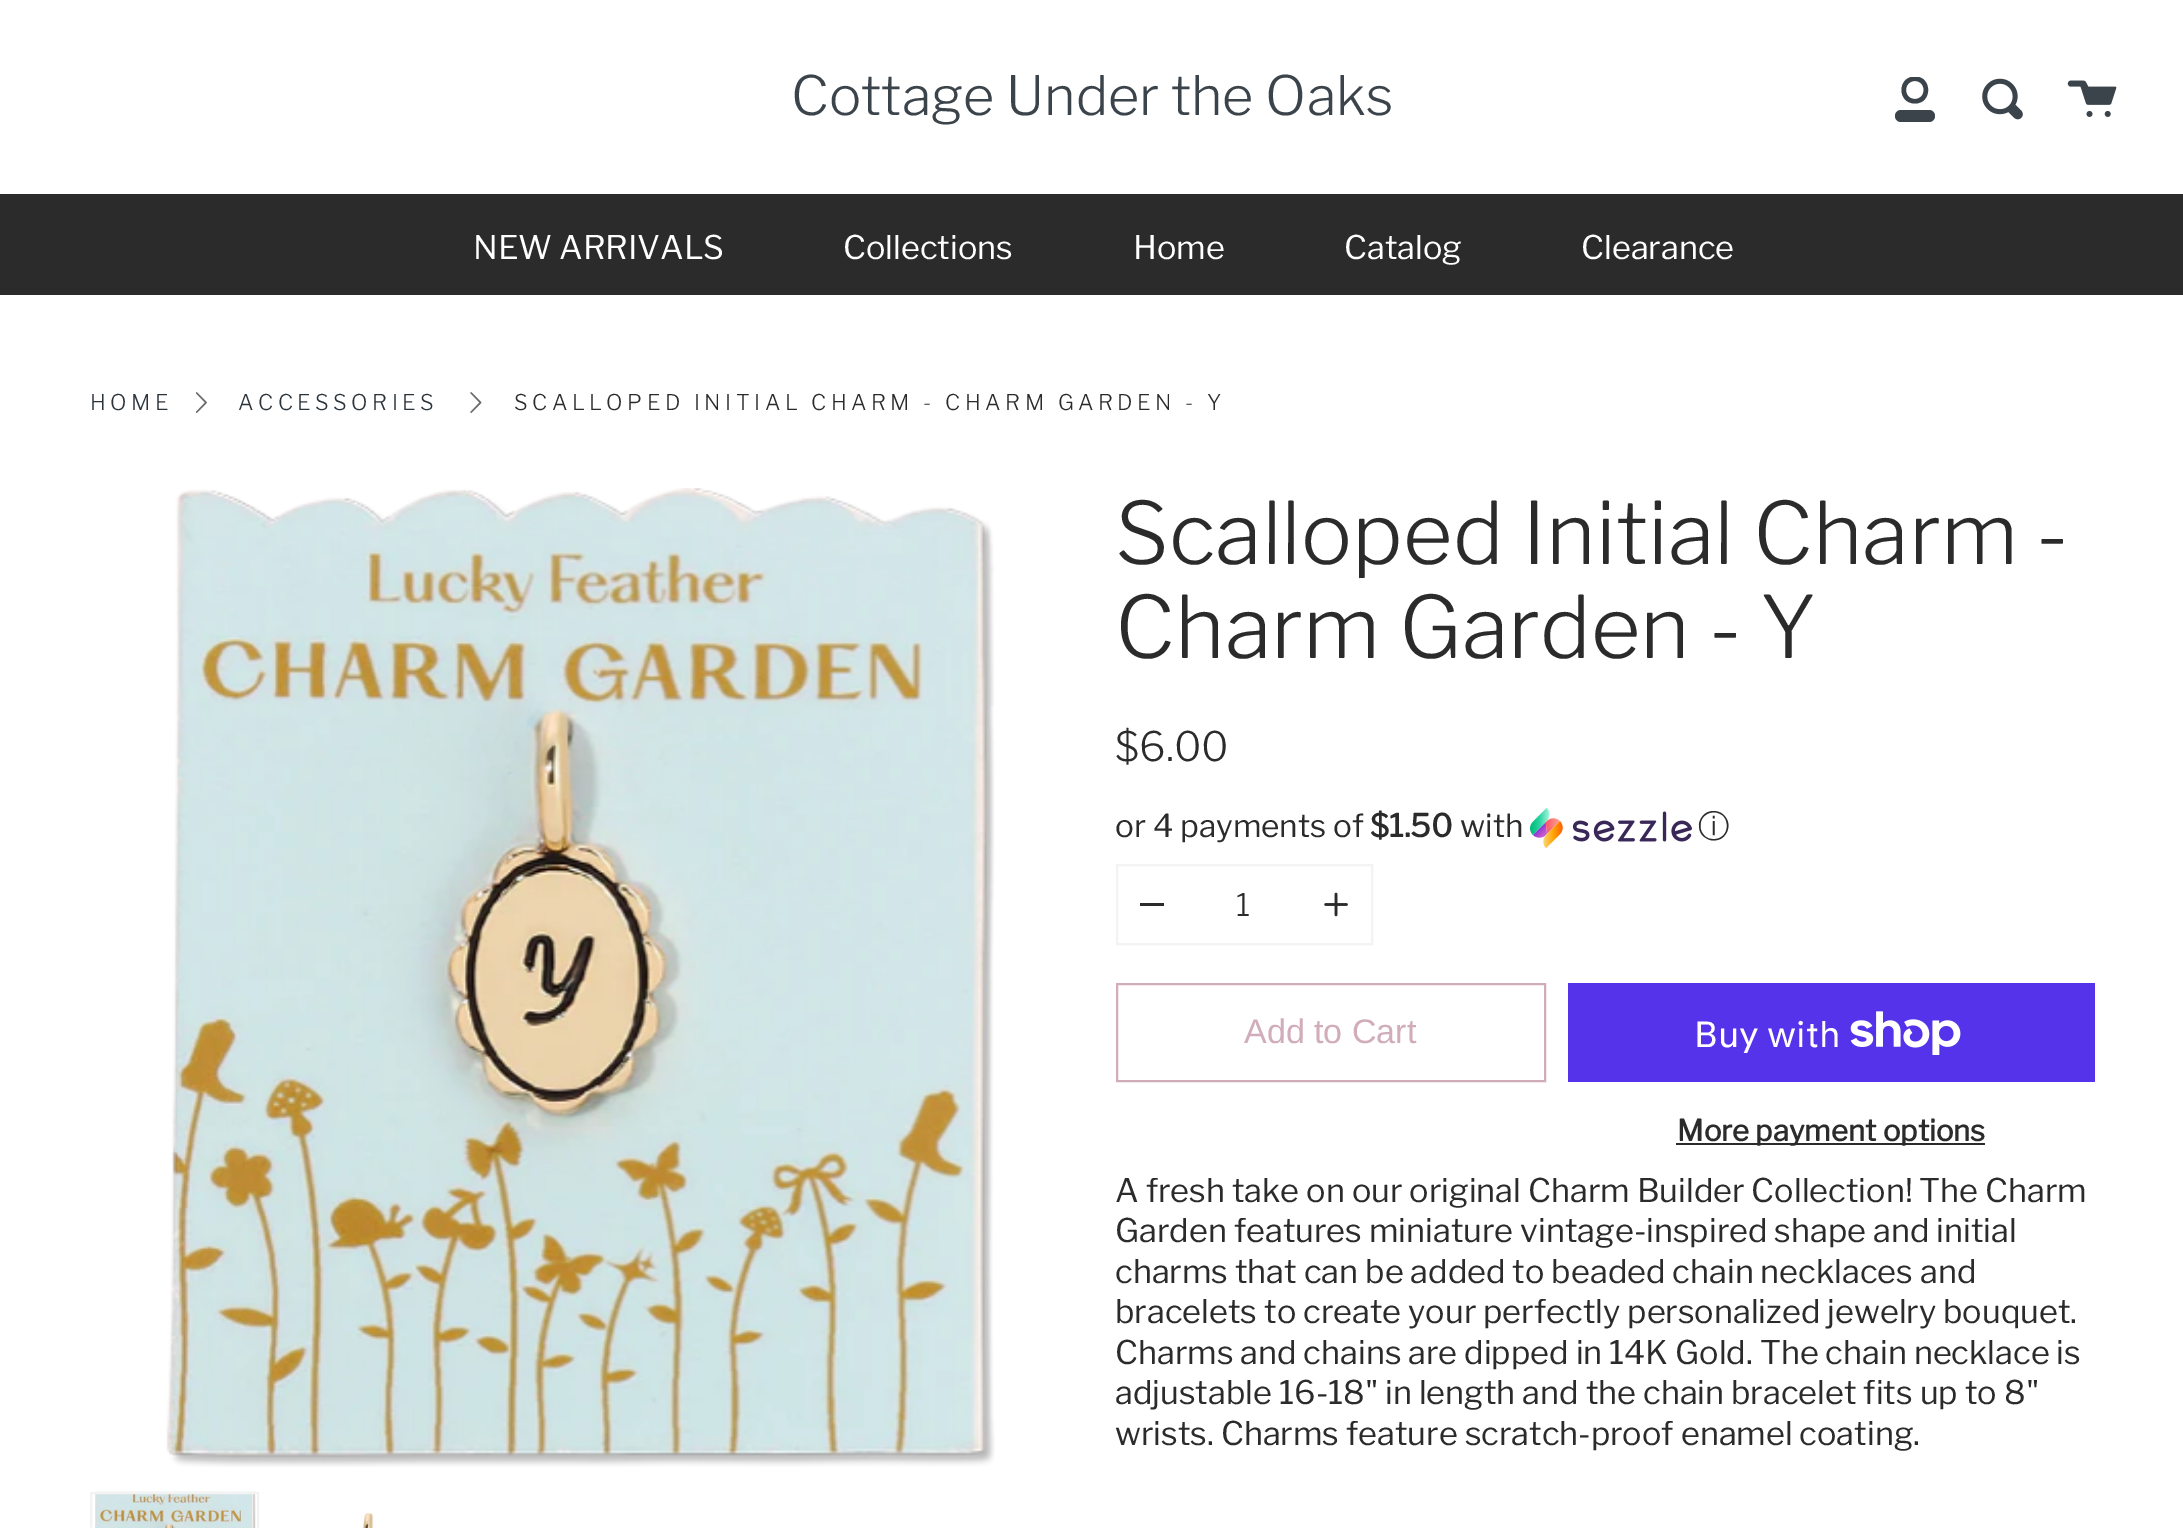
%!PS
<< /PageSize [2183 1528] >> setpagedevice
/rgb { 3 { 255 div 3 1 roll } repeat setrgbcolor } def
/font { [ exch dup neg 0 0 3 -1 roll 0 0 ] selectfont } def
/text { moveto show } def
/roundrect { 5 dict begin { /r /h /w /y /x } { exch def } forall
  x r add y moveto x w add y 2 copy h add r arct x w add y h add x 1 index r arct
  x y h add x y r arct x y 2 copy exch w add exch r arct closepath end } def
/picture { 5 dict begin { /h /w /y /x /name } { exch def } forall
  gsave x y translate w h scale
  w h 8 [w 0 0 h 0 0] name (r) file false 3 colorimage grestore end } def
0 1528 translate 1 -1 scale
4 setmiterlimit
255 255 255 rgb
0 0 2183 1528 rectfill
gsave
1892 77 45 45 rectclip
59 67 75 rgb
1915 103.5 moveto -18 0 -18 -27 0 -27 rcurveto 17.5 0 17.5 27 0 27 rcurveto closepath 1915 99 moveto 11.5 0 11.5 -18 0 -18 rcurveto -12 0 -12 18 0 18 rcurveto closepath fill
grestore
59 67 75 rgb
1895 110 40 12 6 roundrect fill
(img_01.rgb) 1982 78 41 42 picture
(img_02.rgb) 2067 80 50 37 picture
43 43 43 rgb
0 194 2183 101 rectfill
(img_03.rgb) 196 392 11 21 picture
(img_04.rgb) 470 392 12 21 picture
(img_05.rgb) 166 488 829 979 picture
(img_06.rgb) 95 1491 161 37 picture
243 243 243 rgb
2 setlinewidth
91 1493 167 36 rectstroke
(img_07.rgb) 363 1513 11 15 picture
(img_08.rgb) 1530 808 162 40 picture
1117 865 255 79 rectstroke
43 43 43 rgb
1140 903 24 3 rectfill
(img_09.rgb) 1324 892 24 25 picture
209 173 187 rgb
1117 984 428 97 rectstroke
84 51 235 rgb
1568 983 527 99 rectfill
(img_10.rgb) 1850 1011 111 44 picture
43 43 43 rgb
1676 1143 309 2 rectfill
/LibreFranklin-Light 54 font
59 67 75 rgb
(Cottage Under the Oaks) 791 115 text
/LibreFranklin-Regular 32.5 font
255 255 255 rgb
(NEW ARRIVALS) 473 259 text
(Collections) 843 259 text
(Home) 1133 259 text
(Catalog) 1344 259 text
(Clearance) 1581 259 text
/LibreFranklin-Light 21.6 font
43 51 59 rgb
90 410 moveto 4.5 0 (HOME) ashow
238 410 moveto 4.5 0 (ACCESSORIES) ashow
43 43 43 rgb
514 410 moveto 4.5 0 (SCALLOPED INITIAL CHARM - CHARM GARDEN - Y) ashow
/LibreFranklin-Light 85.5 font
(Scalloped Initial Charm -) 1115 564 text
(Charm Garden - Y) 1115 658 text
/LibreFranklin-Light 40.5 font
($6.00) 1115 761 text
/LibreFranklin-Regular 31.5 font
(or 4 payments of) 1115 837 text
/LibreFranklin-Bold 31.5 font
($1.50) 1370 837 text
/LibreFranklin-Regular 31.5 font
(with) 1460 837 text
/WenQuanYiZenHei-Medium 31.5 font
(ⓘ) 1698 837 text
/LibreFranklin-Light 31 font
(1) 1236 916 text
/LiberationSans-Regular 34 font
209 173 187 rgb
(Add to Cart) 1244 1043 text
/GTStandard-Regular 36 font
255 255 255 rgb
(Buy with) 1694 1047 text
/LibreFranklin-Bold 29.25 font
43 43 43 rgb
(More payment options) 1677 1141 text
/LibreFranklin-Regular 32.5 font
(A fresh take on our original Charm Builder Collection! The Charm) 1115 1202 text
(Garden features miniature vintage-inspired shape and initial) 1115 1242 text
(charms that can be added to beaded chain necklaces and) 1115 1283 text
(bracelets to create your perfectly personalized jewelry bouquet.) 1115 1323 text
(Charms and chains are dipped in 14K Gold. The chain necklace is) 1115 1364 text
(adjustable 16-18" in length and the chain bracelet fits up to 8") 1115 1404 text
(wrists. Charms feature scratch-proof enamel coating.) 1115 1445 text
showpage
